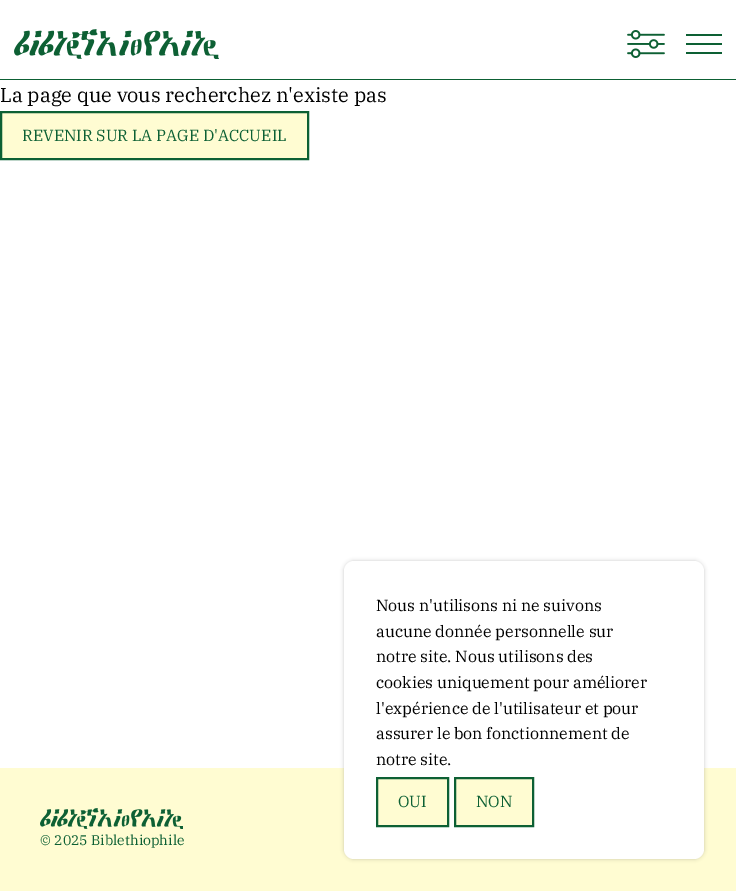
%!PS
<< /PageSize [736 891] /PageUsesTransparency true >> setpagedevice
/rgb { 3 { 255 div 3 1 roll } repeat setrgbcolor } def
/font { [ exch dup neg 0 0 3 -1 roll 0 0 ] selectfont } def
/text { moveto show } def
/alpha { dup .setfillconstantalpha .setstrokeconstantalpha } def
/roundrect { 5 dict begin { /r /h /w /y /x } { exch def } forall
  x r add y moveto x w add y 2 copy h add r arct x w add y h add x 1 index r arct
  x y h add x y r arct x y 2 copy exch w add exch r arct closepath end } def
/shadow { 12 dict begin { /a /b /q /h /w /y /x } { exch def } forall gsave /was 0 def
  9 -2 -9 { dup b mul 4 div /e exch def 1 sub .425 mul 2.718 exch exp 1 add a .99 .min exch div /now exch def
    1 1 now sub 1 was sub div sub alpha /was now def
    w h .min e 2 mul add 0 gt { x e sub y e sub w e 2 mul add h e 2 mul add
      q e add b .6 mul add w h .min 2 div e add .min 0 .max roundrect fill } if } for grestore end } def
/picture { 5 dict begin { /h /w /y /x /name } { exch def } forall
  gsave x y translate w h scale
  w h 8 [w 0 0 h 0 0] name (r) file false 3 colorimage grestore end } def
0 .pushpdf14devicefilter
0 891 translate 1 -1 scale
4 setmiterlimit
255 255 255 rgb
0 0 736 891 rectfill
13 96 52 rgb
0 79 736 1 rectfill
(img_01.rgb) 14 29 205 30 picture
(img_02.rgb) 627 30 38 28 picture
686 34 36 2 rectfill
686 43 36 2 rectfill
686 52 36 2 rectfill
255 252 210 rgb
1 112 moveto 307 0 rlineto 0 47 rlineto -307 0 rlineto closepath gsave fill grestore
13 96 52 rgb
2 setlinewidth
stroke
255 252 210 rgb
0 768 736 123 rectfill
0 0 0 rgb
344 561 360 298 10 2 0.2 shadow
255 255 255 rgb
344 561 360 298 10 roundrect fill
255 252 210 rgb
377 778 moveto 71 0 rlineto 0 48 rlineto -71 0 rlineto closepath gsave fill grestore
13 96 52 rgb
stroke
255 252 210 rgb
455 778 moveto 78 0 rlineto 0 48 rlineto -78 0 rlineto closepath gsave fill grestore
13 96 52 rgb
stroke
(img_03.rgb) 40 808 143 21 picture
/IBMPlexSerif-Regular 20 font
0 0 0 rgb
(La page que vous recherchez n'existe pas) 0 102 text
/IBMPlexSerif-Regular 16 font
13 96 52 rgb
(REVENIR SUR LA PAGE D'ACCUEIL) 22 141 text
0 0 0 rgb
(Nous n'utilisons ni ne suivons) 376 611 text
(aucune donnée personnelle sur) 376 637 text
(notre site. Nous utilisons des) 376 662 text
(cookies uniquement pour améliorer) 376 688 text
(l'expérience de l'utilisateur et pour) 376 714 text
(assurer le bon fonctionnement de) 376 739 text
(notre site.) 376 765 text
13 96 52 rgb
(OUI) 398 807 text
(NON) 476 807 text
/IBMPlexSerif-Regular 14 font
(© 2025 Biblethiophile) 40 845 text
.poppdf14devicefilter showpage
